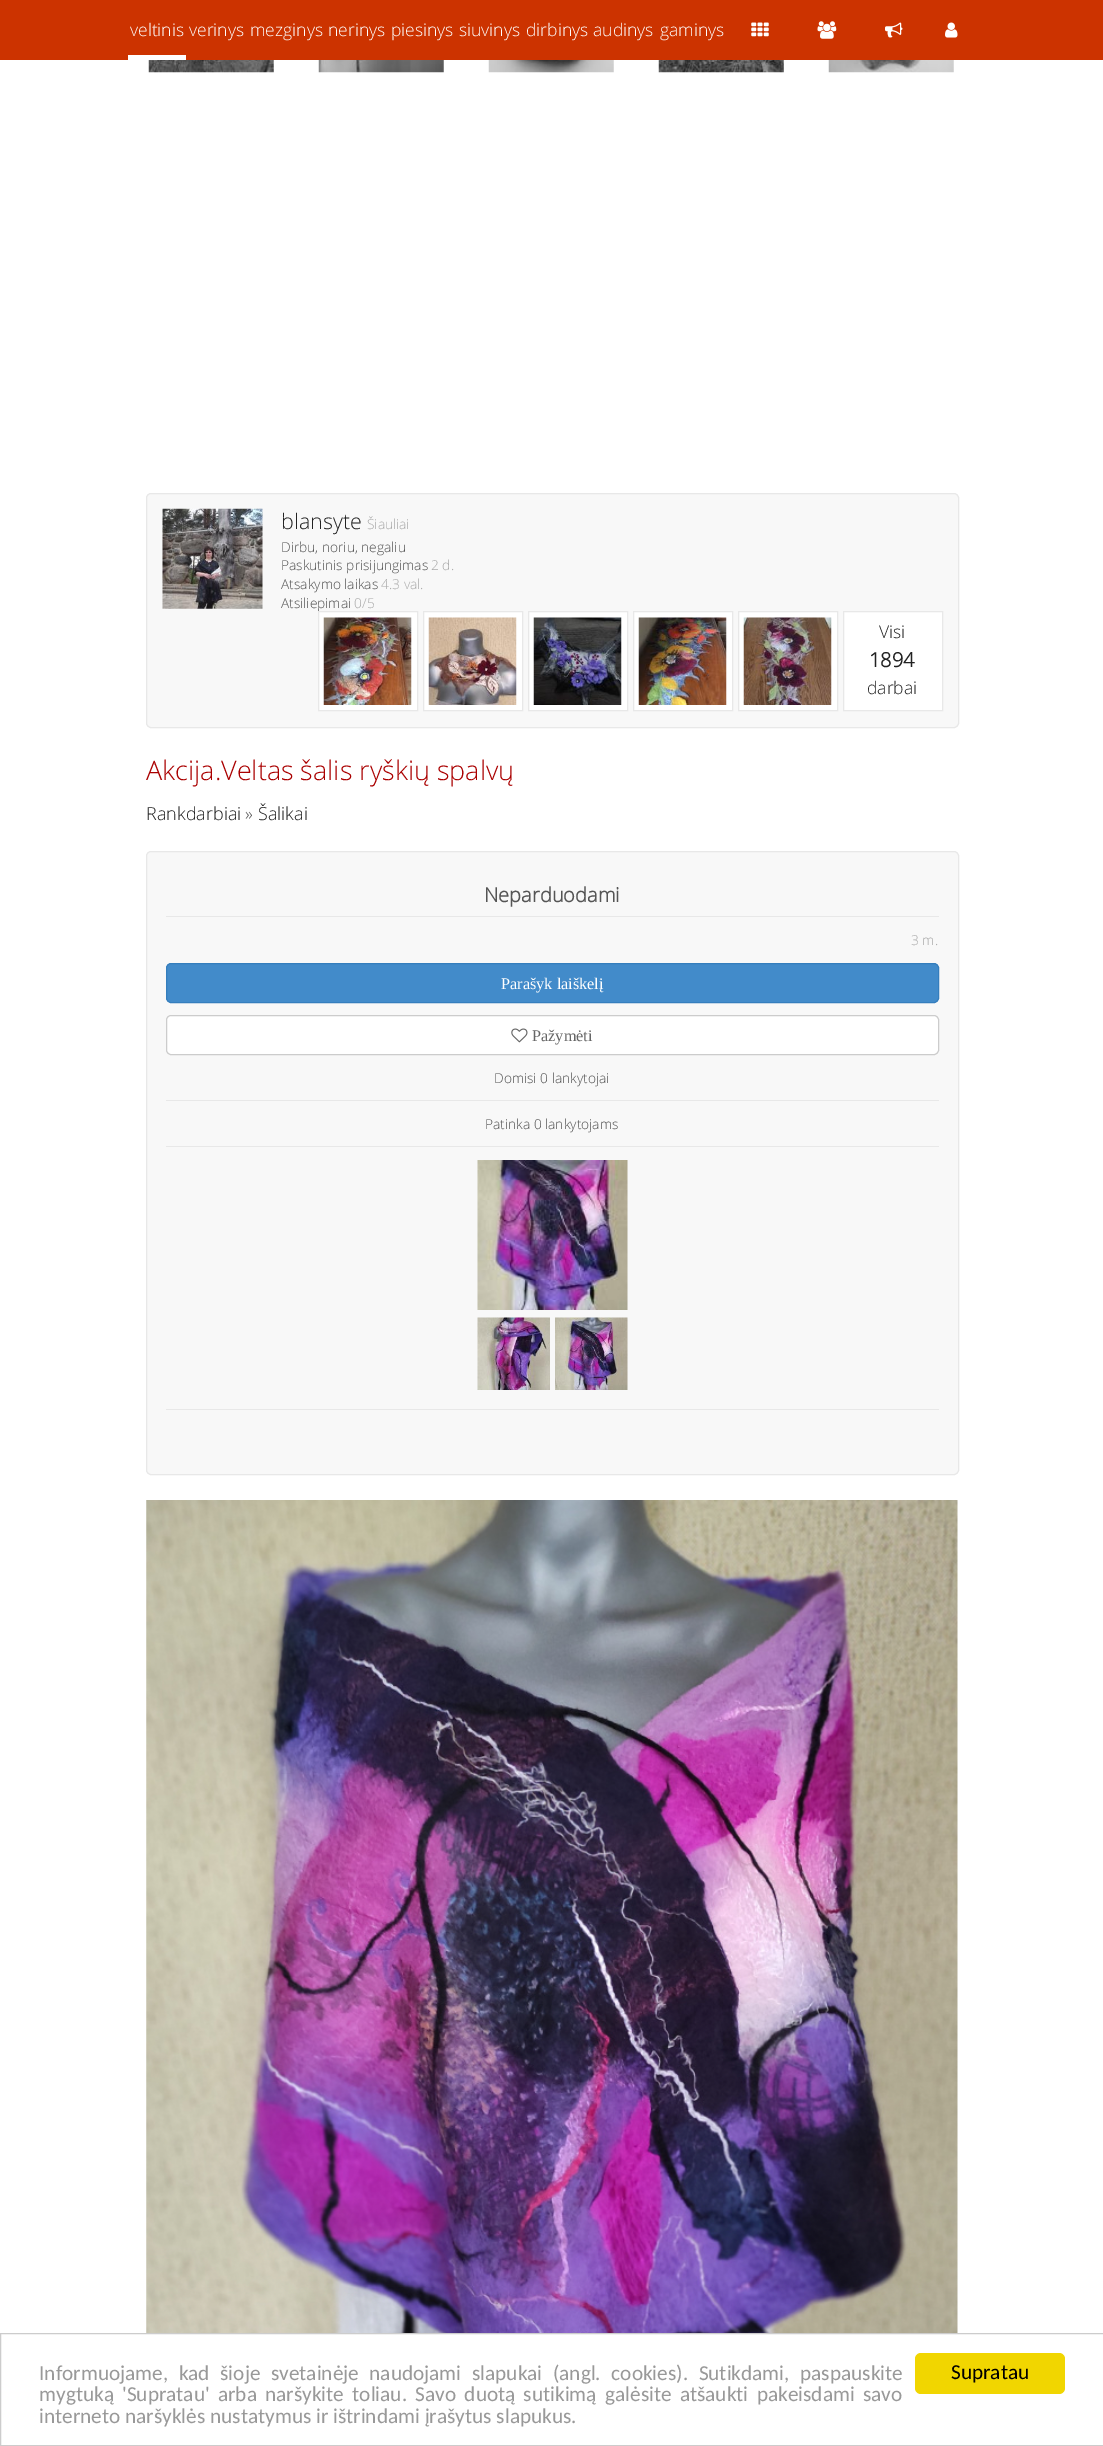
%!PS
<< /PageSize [1103 2446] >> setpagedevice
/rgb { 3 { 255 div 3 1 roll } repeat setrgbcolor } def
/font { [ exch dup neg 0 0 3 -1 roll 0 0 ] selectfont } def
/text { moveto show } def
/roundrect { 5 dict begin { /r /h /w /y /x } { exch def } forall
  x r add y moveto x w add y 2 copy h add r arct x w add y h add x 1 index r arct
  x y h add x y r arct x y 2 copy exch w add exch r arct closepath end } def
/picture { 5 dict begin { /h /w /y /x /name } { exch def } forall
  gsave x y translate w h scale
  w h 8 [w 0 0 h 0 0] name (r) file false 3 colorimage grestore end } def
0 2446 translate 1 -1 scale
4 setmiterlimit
255 255 255 rgb
0 0 1103 2446 rectfill
204 51 0 rgb
0 0 1103 60 rectfill
255 255 255 rgb
128 55 58 5 rectfill
(img_01.rgb) 751 22 18 15 picture
(img_02.rgb) 817 21 20 18 picture
(img_03.rgb) 885 22 18 16 picture
(img_04.rgb) 945 22 13 16 picture
(img_05.rgb) 148 60 126 13 picture
(img_06.rgb) 318 60 126 13 picture
(img_07.rgb) 488 60 126 13 picture
(img_08.rgb) 658 60 126 13 picture
(img_09.rgb) 828 60 126 13 picture
248 248 248 rgb
146.5 493.5 812 234 4.5 roundrect gsave fill grestore
232 232 232 rgb
stroke
(img_10.rgb) 162 508 101 101 picture
255 255 255 rgb
423.5 611.5 moveto 99 0 rlineto 0 99 rlineto -99 0 rlineto closepath gsave fill grestore
232 232 232 rgb
stroke
(img_12.rgb) 428 617 89 88 picture
255 255 255 rgb
528.5 611.5 moveto 99 0 rlineto 0 99 rlineto -99 0 rlineto closepath gsave fill grestore
232 232 232 rgb
stroke
(img_13.rgb) 533 617 89 88 picture
255 255 255 rgb
633.5 611.5 moveto 99 0 rlineto 0 99 rlineto -99 0 rlineto closepath gsave fill grestore
232 232 232 rgb
stroke
(img_14.rgb) 638 617 89 88 picture
255 255 255 rgb
738.5 611.5 moveto 99 0 rlineto 0 99 rlineto -99 0 rlineto closepath gsave fill grestore
232 232 232 rgb
stroke
(img_15.rgb) 743 617 89 88 picture
255 255 255 rgb
843.5 611.5 moveto 99 0 rlineto 0 99 rlineto -99 0 rlineto closepath gsave fill grestore
232 232 232 rgb
stroke
248 248 248 rgb
146.5 851.5 812 623 4.5 roundrect gsave fill grestore
232 232 232 rgb
stroke
166 916 773 1 rectfill
66 139 202 rgb
166.5 963.5 772 39 4.5 roundrect gsave fill grestore
53 126 189 rgb
stroke
255 255 255 rgb
166.5 1015.5 772 39 4.5 roundrect gsave fill grestore
204 204 204 rgb
stroke
(img_16.rgb) 511 1028 17 15 picture
232 232 232 rgb
166 1100 773 1 rectfill
166 1146 773 1 rectfill
(img_17.rgb) 477 1160 151 150 picture
(img_18.rgb) 477 1317 73 73 picture
(img_19.rgb) 555 1317 73 73 picture
166 1409 773 1 rectfill
(img_20.rgb) 146 1500 812 833 picture
204 204 204 rgb
0.5 2333.5 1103 112 rectstroke
241 214 0 rgb
915 2353 150 41 6 roundrect fill
/OpenSans-Light 17.5 font
255 255 255 rgb
(veltinis) 130 36 text
(verinys) 189 36 text
(mezginys) 250 36 text
(nerinys) 328 36 text
(piesinys) 391 36 text
(siuvinys) 459 36 text
(dirbinys) 526 36 text
(audinys) 593 36 text
(gaminys) 660 36 text
/OpenSans-Light 21.5 font
34 34 34 rgb
(blansyte) 281 529 text
/OpenSans-Light 13.75 font
170 170 170 rgb
(Šiauliai) 367 529 text
85 85 85 rgb
(Dirbu, noriu, negaliu) 281 552 text
(Paskutinis prisijungimas) 281 570 text
170 170 170 rgb
(2 d.) 431 570 text
85 85 85 rgb
(Atsakymo laikas) 281 589 text
170 170 170 rgb
(4.3 val.) 381 589 text
85 85 85 rgb
(Atsiliepimai) 281 608 text
170 170 170 rgb
(0/5) 354 608 text
255 255 255 rgb
318.5 611.5 moveto 99 0 rlineto 0 99 rlineto -99 0 rlineto closepath gsave fill grestore
232 232 232 rgb
stroke
(img_11.rgb) 323 617 89 88 picture
/OpenSans-Light 17.5 font
34 34 34 rgb
(Visi) 879 638 text
/OpenSans-Bold 20 font
(1894) 869 667 text
/OpenSans-Light 17.5 font
(darbai) 867 694 text
/OpenSans-Light 27 font
170 0 0 rgb
(Akcija.Veltas šalis ryškių spalvų) 146 780 text
/OpenSans-Light 18 font
34 34 34 rgb
(Rankdarbiai) 146 820 text
85 85 85 rgb
(») 245 820 text
34 34 34 rgb
(Šalikai) 258 820 text
/OpenSans-Bold 20 font
85 85 85 rgb
(Neparduodami) 484 902 text
/OpenSans-Light 13.75 font
170 170 170 rgb
(3 m.) 911 945 text
/LiberationSerif-Regular 16.25 font
255 255 255 rgb
(Parašyk laiškelį) 501 989 text
102 102 102 rgb
(Pažymėti) 532 1041 text
/OpenSans-Light 13.75 font
85 85 85 rgb
(Domisi 0 lankytojai) 494 1083 text
(Patinka 0 lankytojams) 485 1129 text
/Carlito-Regular 21.25 font
153 153 153 rgb
39 2380 moveto 5.75 0 32 (Informuojame, kad šioje svetainėje naudojami slapukai \(angl. cookies\). Sutikdami, paspauskite) widthshow
39 2401 moveto 3.5 0 32 (mygtuką 'Supratau' arba naršykite toliau. Savo duotą sutikimą galėsite atšaukti pakeisdami savo) widthshow
(interneto naršyklės nustatymus ir ištrindami įrašytus slapukus.) 39 2423 text
0 0 0 rgb
(Supratau) 951 2379 text
showpage
